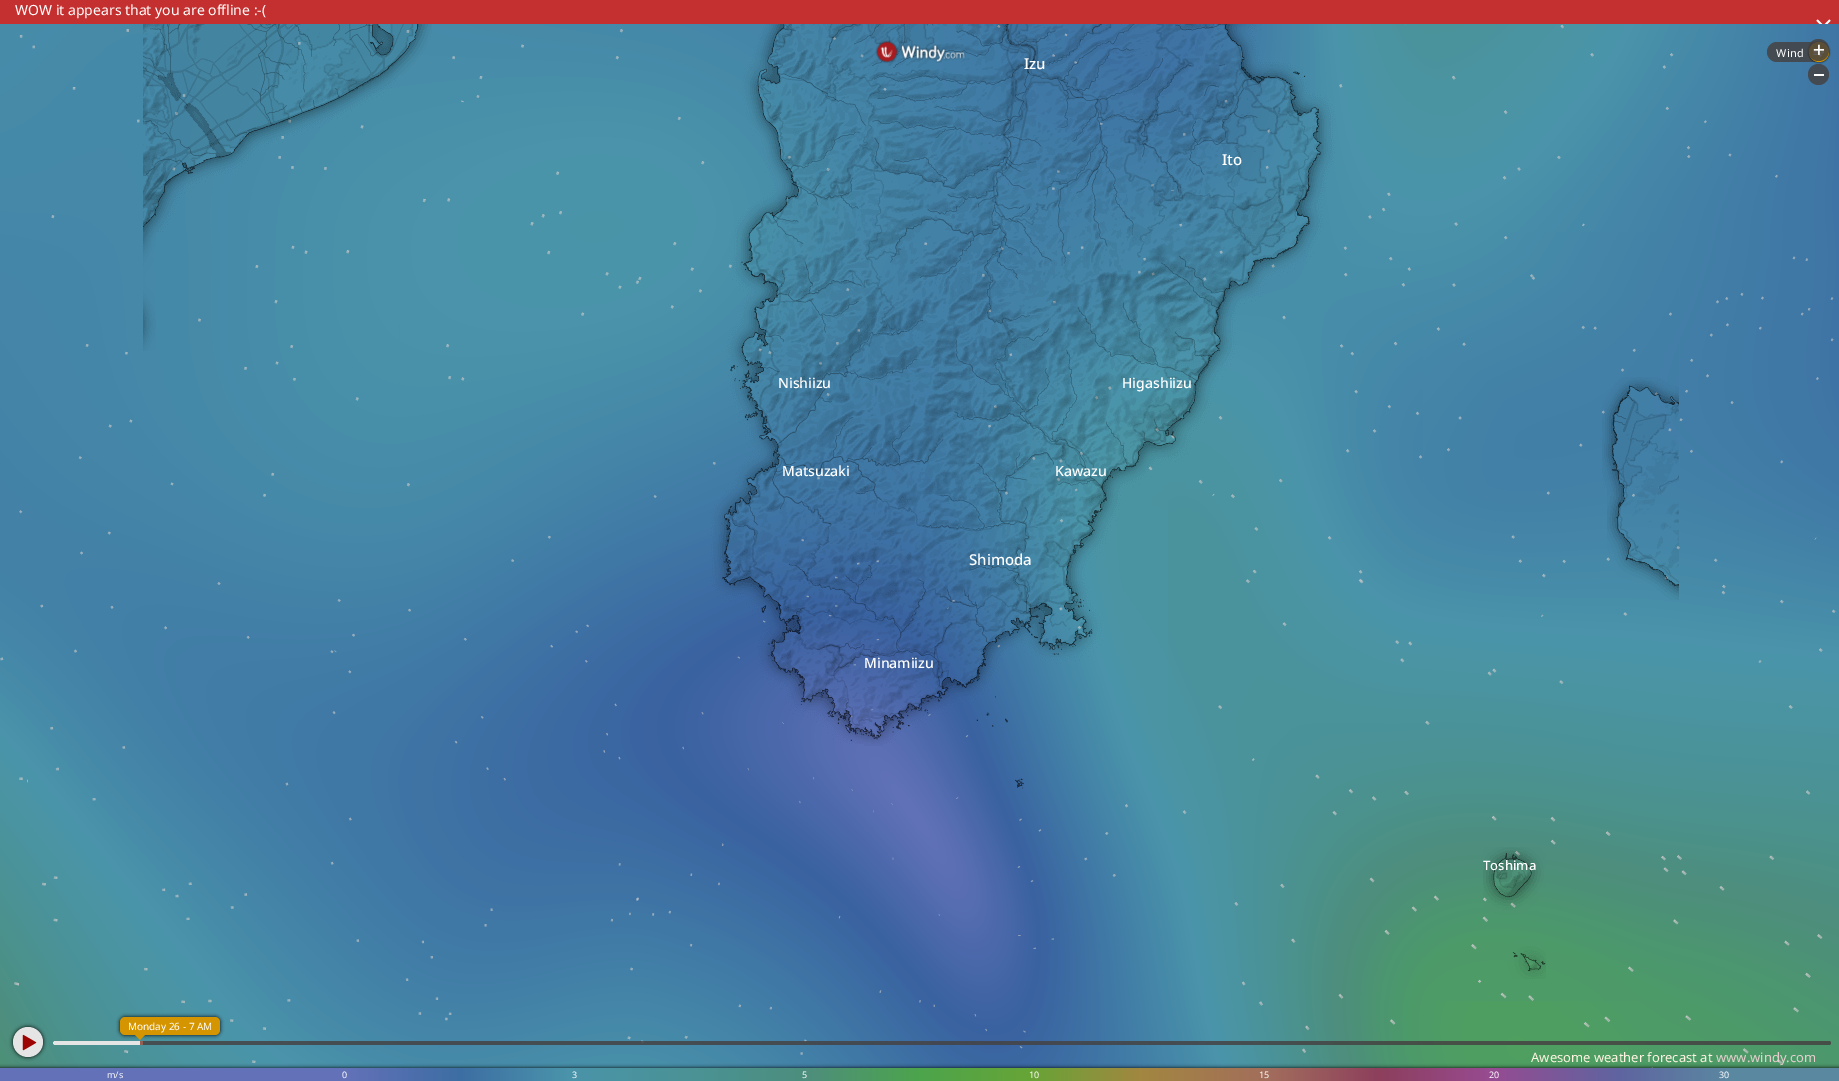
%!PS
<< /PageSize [1839 1081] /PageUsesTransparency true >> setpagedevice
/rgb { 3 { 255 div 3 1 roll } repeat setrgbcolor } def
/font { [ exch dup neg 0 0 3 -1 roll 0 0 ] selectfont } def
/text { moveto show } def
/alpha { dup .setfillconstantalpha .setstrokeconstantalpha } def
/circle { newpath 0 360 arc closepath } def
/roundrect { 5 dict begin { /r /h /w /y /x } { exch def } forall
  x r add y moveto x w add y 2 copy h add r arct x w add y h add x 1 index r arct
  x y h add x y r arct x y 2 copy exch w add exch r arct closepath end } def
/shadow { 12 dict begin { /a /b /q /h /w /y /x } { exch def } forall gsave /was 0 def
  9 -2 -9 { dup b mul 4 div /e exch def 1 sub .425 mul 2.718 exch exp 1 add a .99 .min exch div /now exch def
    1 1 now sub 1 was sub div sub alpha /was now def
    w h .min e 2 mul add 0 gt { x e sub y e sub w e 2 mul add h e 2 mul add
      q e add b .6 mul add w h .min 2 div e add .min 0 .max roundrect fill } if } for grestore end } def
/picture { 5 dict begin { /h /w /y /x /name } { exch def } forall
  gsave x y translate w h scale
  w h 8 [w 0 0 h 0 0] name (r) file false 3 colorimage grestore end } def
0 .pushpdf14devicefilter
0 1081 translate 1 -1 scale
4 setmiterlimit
255 255 255 rgb
0 0 1839 1081 rectfill
196 47 47 rgb
0 0 1839 24 rectfill
(img_01.rgb) 1816 19 15 5 picture
(img_09.rgb) 655 24 256 208 picture
(img_06.rgb) 0 24 143 208 picture
(img_07.rgb) 143 24 256 208 picture
(img_08.rgb) 399 24 256 208 picture
(img_10.rgb) 911 24 256 208 picture
(img_11.rgb) 1167 24 256 208 picture
(img_12.rgb) 1423 24 256 208 picture
(img_13.rgb) 1679 24 160 208 picture
(img_14.rgb) 0 232 143 256 picture
(img_15.rgb) 143 232 256 256 picture
(img_16.rgb) 399 232 256 256 picture
(img_17.rgb) 655 232 256 256 picture
(img_18.rgb) 911 232 256 256 picture
(img_19.rgb) 1167 232 256 256 picture
(img_20.rgb) 1423 232 256 256 picture
(img_21.rgb) 1679 232 160 256 picture
(img_22.rgb) 0 488 143 256 picture
(img_23.rgb) 143 488 256 256 picture
(img_24.rgb) 399 488 256 256 picture
(img_25.rgb) 655 488 256 256 picture
(img_26.rgb) 911 488 256 256 picture
(img_27.rgb) 1167 488 256 256 picture
(img_28.rgb) 1423 488 256 256 picture
(img_29.rgb) 1679 488 160 256 picture
(img_30.rgb) 0 744 143 256 picture
(img_31.rgb) 143 744 256 256 picture
(img_32.rgb) 399 744 256 256 picture
(img_33.rgb) 655 744 256 256 picture
(img_34.rgb) 911 744 256 256 picture
(img_35.rgb) 1167 744 256 256 picture
(img_36.rgb) 1423 744 256 256 picture
(img_37.rgb) 1679 744 160 256 picture
(img_38.rgb) 0 1000 143 68 picture
(img_39.rgb) 143 1000 256 68 picture
(img_40.rgb) 399 1000 256 68 picture
(img_41.rgb) 655 1000 256 68 picture
(img_42.rgb) 911 1000 256 68 picture
(img_43.rgb) 1167 1000 256 68 picture
(img_44.rgb) 1423 1000 256 68 picture
(img_45.rgb) 1679 1000 160 68 picture
(img_46.rgb) 0 24 1836 1044 picture
(img_49.rgb) 735 24 176 208 picture
(img_02.rgb) 875 40 24 24 picture
(img_50.rgb) 911 24 256 208 picture
(img_03.rgb) 900 44 66 19 picture
0.84 alpha
68 65 65 rgb
1767 42 62 20 10 roundrect fill
1 alpha
0 0 0 rgb
1809 42 20 20 10 1 1 shadow
212 149 0 rgb
1819 52 10 circle fill
(img_04.rgb) 1813 50 11 7 picture
0.84 alpha
68 65 65 rgb
1808 39 21 22 10.5 roundrect fill
1 alpha
(img_05.rgb) 1813 44 12 11 picture
0.84 alpha
1818.5 74.5 10.5 circle fill
1 alpha
255 255 255 rgb
1814 74 10 2 rectfill
(img_47.rgb) 143 24 256 208 picture
(img_48.rgb) 399 24 33 51 picture
(img_51.rgb) 1167 24 168 208 picture
(img_52.rgb) 143 232 13 119 picture
(img_53.rgb) 726 232 185 256 picture
(img_54.rgb) 911 232 256 256 picture
(img_55.rgb) 1167 232 153 230 picture
(img_56.rgb) 1602 377 77 111 picture
(img_57.rgb) 710 488 201 256 picture
(img_58.rgb) 911 488 211 240 picture
(img_59.rgb) 1607 488 72 112 picture
88 107 174 rgb
864 744 19 2 rectfill
(img_60.rgb) 1015 778 9 11 picture
(img_61.rgb) 1483 847 63 132 picture
0 0 0 rgb
13 1027 30 30 15 2 1 shadow
229 229 229 rgb
28 1042 15 circle fill
(img_62.rgb) 22 1034 15 17 picture
0 0 0 rgb
120 1017 100 18 5 2 1 shadow
212 149 0 rgb
120 1017 100 18 5 roundrect fill
135 1035 moveto 10 0 rlineto -5 5 rlineto closepath fill
0.84 alpha
68 65 65 rgb
53 1041 1778 4 2 roundrect fill
1 alpha
229 229 229 rgb
55 1041 moveto 85 0 rlineto 0 4 rlineto -85 0 rlineto -1 0 -2 -1 -2 -2 rcurveto 0 -1 1 -2 2 -2 rcurveto closepath fill
148 96 81 rgb
140 1041 3 4 rectfill
0 0 0 rgb
0 1068 1839 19 0 2 1 shadow
gsave 0 1068 moveto 1839 0 rlineto 0 13 rlineto -1839 0 rlineto closepath clip newpath
<< /ShadingType 2 /ColorSpace /DeviceRGB /Coords [0 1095 1839 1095] /Extend [true true] /Function << /FunctionType 3 /Domain [0 1] /Functions [<< /FunctionType 2 /Domain [0 1] /C0 [0.384 0.443 0.722] /C1 [0.384 0.443 0.722] /N 1 >> << /FunctionType 2 /Domain [0 1] /C0 [0.384 0.443 0.722] /C1 [0.239 0.431 0.639] /N 1 >> << /FunctionType 2 /Domain [0 1] /C0 [0.239 0.431 0.639] /C1 [0.29 0.58 0.667] /N 1 >> << /FunctionType 2 /Domain [0 1] /C0 [0.29 0.58 0.667] /C1 [0.29 0.573 0.58] /N 1 >> << /FunctionType 2 /Domain [0 1] /C0 [0.29 0.573 0.58] /C1 [0.302 0.557 0.486] /N 1 >> << /FunctionType 2 /Domain [0 1] /C0 [0.302 0.557 0.486] /C1 [0.298 0.643 0.298] /N 1 >> << /FunctionType 2 /Domain [0 1] /C0 [0.298 0.643 0.298] /C1 [0.404 0.643 0.212] /N 1 >> << /FunctionType 2 /Domain [0 1] /C0 [0.404 0.643 0.212] /C1 [0.635 0.529 0.251] /N 1 >> << /FunctionType 2 /Domain [0 1] /C0 [0.635 0.529 0.251] /C1 [0.635 0.427 0.361] /N 1 >> << /FunctionType 2 /Domain [0 1] /C0 [0.635 0.427 0.361] /C1 [0.553 0.247 0.361] /N 1 >> << /FunctionType 2 /Domain [0 1] /C0 [0.553 0.247 0.361] /C1 [0.592 0.294 0.569] /N 1 >> << /FunctionType 2 /Domain [0 1] /C0 [0.592 0.294 0.569] /C1 [0.373 0.392 0.627] /N 1 >> << /FunctionType 2 /Domain [0 1] /C0 [0.373 0.392 0.627] /C1 [0.357 0.533 0.631] /N 1 >> << /FunctionType 2 /Domain [0 1] /C0 [0.357 0.533 0.631] /C1 [0.357 0.533 0.631] /N 1 >>] /Bounds [0.19 0.25 0.31 0.38 0.44 0.5 0.56 0.62 0.69 0.75 0.81 0.88 0.94] /Encode [0 1 0 1 0 1 0 1 0 1 0 1 0 1 0 1 0 1 0 1 0 1 0 1 0 1 0 1] >> >> shfill grestore
/NotoSans-Regular 14 font
255 255 255 rgb
(WOW it appears that you are offline :-\() 15 15 text
/NotoSans-Regular 11 font
1776 57 moveto 0.5 0 (Wind) ashow
/NotoSans-Medium 15 font
(Izu) 1024 69 text
(Ito) 1222 165 text
/NotoSans-Medium 14 font
(Nishiizu) 778 388 text
(Matsuzaki) 782 476 text
(Higashiizu) 1122 388 text
(Kawazu) 1055 476 text
/NotoSans-Medium 15 font
(Shimoda) 969 565 text
/NotoSans-Medium 14 font
(Minamiizu) 864 668 text
/NotoSans-Medium 13 font
(Toshima) 1483 870 text
/NotoSans-Regular 10 font
(Monday 26 - 7 AM) 128 1030 text
/NotoSans-Regular 13 font
255 243 225 rgb
(Awesome weather forecast at) 1531 1062 text
230 206 206 rgb
(www.windy.com) 1716 1062 text
/NotoSans-Regular 9 font
255 255 255 rgb
(m/s) 107 1078 text
(0) 342 1078 text
(3) 572 1078 text
(5) 802 1078 text
(10) 1029 1078 text
(15) 1259 1078 text
(20) 1489 1078 text
(30) 1719 1078 text
.poppdf14devicefilter showpage
